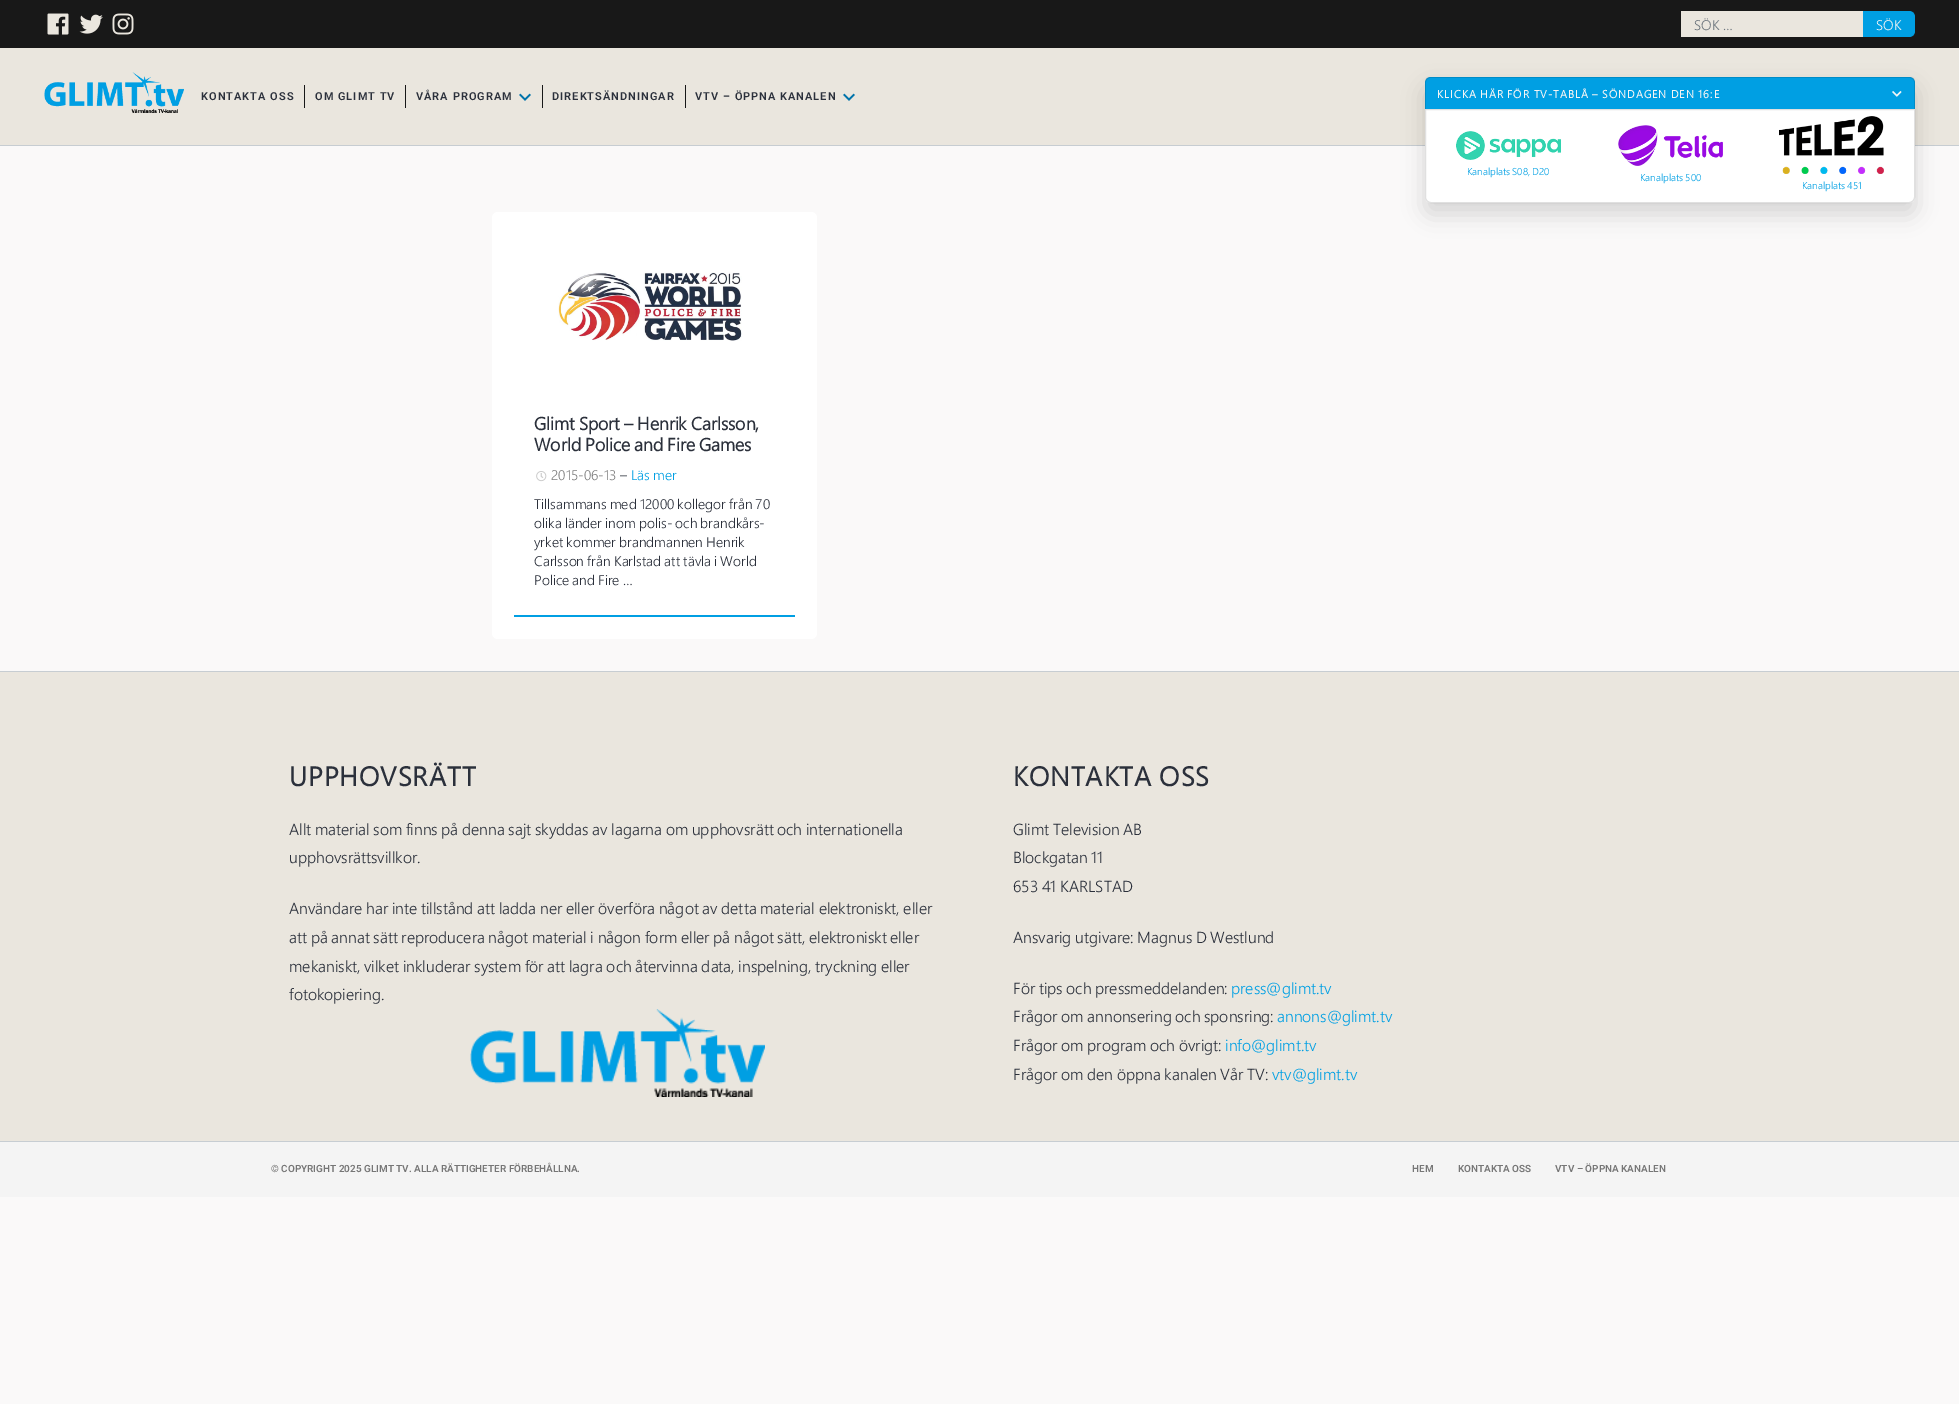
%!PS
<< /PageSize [1959 1404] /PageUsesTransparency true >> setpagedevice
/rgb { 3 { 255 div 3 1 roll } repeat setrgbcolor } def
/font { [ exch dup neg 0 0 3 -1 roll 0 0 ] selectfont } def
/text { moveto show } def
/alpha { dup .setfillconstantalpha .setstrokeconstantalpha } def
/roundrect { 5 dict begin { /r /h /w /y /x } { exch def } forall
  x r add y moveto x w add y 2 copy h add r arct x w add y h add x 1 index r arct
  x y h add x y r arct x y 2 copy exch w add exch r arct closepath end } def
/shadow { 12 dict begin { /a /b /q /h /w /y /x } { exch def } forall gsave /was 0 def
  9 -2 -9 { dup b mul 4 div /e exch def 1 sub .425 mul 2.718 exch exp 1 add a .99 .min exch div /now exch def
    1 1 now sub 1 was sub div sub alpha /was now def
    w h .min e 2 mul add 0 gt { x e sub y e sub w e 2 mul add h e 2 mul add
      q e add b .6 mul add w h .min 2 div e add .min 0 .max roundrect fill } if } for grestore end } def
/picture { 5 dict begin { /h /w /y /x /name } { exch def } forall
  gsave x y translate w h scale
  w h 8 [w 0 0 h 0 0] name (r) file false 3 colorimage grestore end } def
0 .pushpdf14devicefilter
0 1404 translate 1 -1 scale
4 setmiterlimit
250 249 249 rgb
0 0 1959 1404 rectfill
234 230 222 rgb
0 48 1959 97 rectfill
199 205 210 rgb
0 145 1959 1 rectfill
24 24 24 rgb
0 0 1959 48 rectfill
(img_01.rgb) 47 13 22 22 picture
(img_02.rgb) 79 14 24 20 picture
(img_03.rgb) 112 13 22 22 picture
234 230 222 rgb
1681 11 182 26 rectfill
0 159 227 rgb
1863 11 moveto 46 0 rlineto 3.5 0 6 2.5 6 6 rcurveto 0 14 rlineto 0 3.5 -2.5 6 -6 6 rcurveto -46 0 rlineto closepath fill
(img_04.rgb) 44 72 140 41 picture
24 24 24 rgb
304 85 1 23 rectfill
405 85 1 23 rectfill
542 85 1 23 rectfill
(img_05.rgb) 519 93 12 8 picture
685 85 1 23 rectfill
(img_05.rgb) 843 93 12 8 picture
0 0 0 rgb
1425 88 490 126 6 11 0.15 shadow
0 159 227 rgb
1431 77 moveto 478 0 rlineto 3.5 0 6 2.5 6 6 rcurveto 0 26 rlineto -490 0 rlineto 0 -26 rlineto 0 -3.5 2.5 -6 6 -6 rcurveto closepath fill
0.12 alpha
0 0 0 rgb
1430 77 moveto 480 0 rlineto 3 0 5 2 5 5 rcurveto 0 27 rlineto -490 0 rlineto 0 -27 rlineto 0 -3 2 -5 5 -5 rcurveto closepath 1430 78 moveto 480 0 rlineto 2 0 4 2 4 4 rcurveto 0 27 rlineto -488 0 rlineto 0 -27 rlineto 0 -2 2 -4 4 -4 rcurveto closepath eofill
1 alpha
(img_06.rgb) 1892 91 10 6 picture
255 255 255 rgb
1425 109 moveto 490 0 rlineto 0 88 rlineto 0 3.5 -2.5 6 -6 6 rcurveto -478 0 rlineto -3.5 0 -6 -2.5 -6 -6 rcurveto closepath fill
0.12 alpha
0 0 0 rgb
1425.5 109.5 moveto 489 0 rlineto 0 87.5 rlineto 0 3 -2.5 5.5 -5.5 5.5 rcurveto -478 0 rlineto -3 0 -5.5 -2.5 -5.5 -5.5 rcurveto closepath stroke
1 alpha
(img_07.rgb) 1456 131 105 29 picture
(img_08.rgb) 1618 125 105 41 picture
(img_09.rgb) 1779 116 105 58 picture
255 255 255 rgb
492 212 325 427 6 roundrect fill
0 159 227 rgb
514 615 281 2 rectfill
(img_10.rgb) 558 272 184 69 picture
(img_11.rgb) 536 471 11 11 picture
234 230 222 rgb
0 672 1959 469 rectfill
199 205 210 rgb
0 671 1959 1 rectfill
(img_12.rgb) 470 1009 295 88 picture
244 244 244 rgb
0 1142 1959 55 rectfill
199 205 210 rgb
0 1141 1959 1 rectfill
/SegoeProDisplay-Light 14 font
108 117 125 rgb
(SÖK …) 1694 30 text
244 244 244 rgb
(SÖK) 1876 30 text
/Roboto-SemiBold 11 font
43 48 59 rgb
201 100 moveto 1 0 (KONTAKTA OSS) ashow
315 100 moveto 1 0 (OM GLIMT TV) ashow
416 100 moveto 1 0 (VÅRA PROGRAM) ashow
552 100 moveto 1 0 (DIREKTSÄNDNINGAR) ashow
695 100 moveto 1 0 (VTV – ÖPPNA KANALEN) ashow
/SegoeProDisplay-Bold 11 font
244 244 244 rgb
1437 98 moveto 1 0 (KLICKA HÄR FÖR TV-TABLÅ – SÖNDAGEN DEN 16:E) ashow
/SegoeProDisplay-Light 10 font
0 159 227 rgb
(Kanalplats S08, D20) 1467 175 text
(Kanalplats 500) 1640 181 text
(Kanalplats 451) 1802 189 text
/SegoeProDisplay-Bold 18 font
43 48 59 rgb
(Glimt Sport – Henrik Carlsson,) 534 430 text
(World Police and Fire Games) 534 451 text
/SegoeProDisplay-Light 14 font
124 124 124 rgb
(2015-06-13) 551 480 text
43 48 59 rgb
(–) 620 480 text
0 159 227 rgb
(Läs mer) 631 480 text
43 48 59 rgb
(Tillsammans med 12000 kollegor från 70) 534 509 text
(olika länder inom polis- och brandkårs-) 534 528 text
(yrket kommer brandmannen Henrik) 534 547 text
(Carlsson från Karlstad att tävla i World) 534 566 text
(Police and Fire …) 534 585 text
/SegoeProDisplay-Bold 27 font
289 786 moveto 1 0 (UPPHOVSRÄTT) ashow
/SegoeProDisplay-Light 16 font
(Allt material som finns på denna sajt skyddas av lagarna om upphovsrätt och internationella) 289 835 text
(upphovsrättsvillkor.) 289 863 text
(Användare har inte tillstånd att ladda ner eller överföra något av detta material elektroniskt, eller) 289 914 text
(att på annat sätt reproducera något material i någon form eller på något sätt, elektroniskt eller) 289 943 text
(mekaniskt, vilket inkluderar system för att lagra och återvinna data, inspelning, tryckning eller) 289 972 text
(fotokopiering.) 289 1000 text
/SegoeProDisplay-Bold 27 font
1013 786 moveto 1 0 (KONTAKTA OSS) ashow
/SegoeProDisplay-Light 16 font
(Glimt Television AB) 1013 835 text
(Blockgatan 11) 1013 863 text
(653 41 KARLSTAD) 1013 892 text
(Ansvarig utgivare: Magnus D Westlund) 1013 943 text
(För tips och pressmeddelanden:) 1013 994 text
0 159 227 rgb
(press@glimt.tv) 1231 994 text
43 48 59 rgb
(Frågor om annonsering och sponsring:) 1013 1022 text
0 159 227 rgb
(annons@glimt.tv) 1277 1022 text
43 48 59 rgb
(Frågor om program och övrigt:) 1013 1051 text
0 159 227 rgb
(info@glimt.tv) 1225 1051 text
43 48 59 rgb
(Frågor om den öppna kanalen Vår TV:) 1013 1080 text
0 159 227 rgb
(vtv@glimt.tv) 1272 1080 text
/Roboto-SemiBold 9.95 font
118 118 118 rgb
(© COPYRIGHT 2025 GLIMT TV. ALLA RÄTTIGHETER FÖRBEHÅLLNA.) 271 1172 text
(HEM) 1412 1172 text
(KONTAKTA OSS) 1458 1172 text
(VTV – ÖPPNA KANALEN) 1555 1172 text
.poppdf14devicefilter showpage
